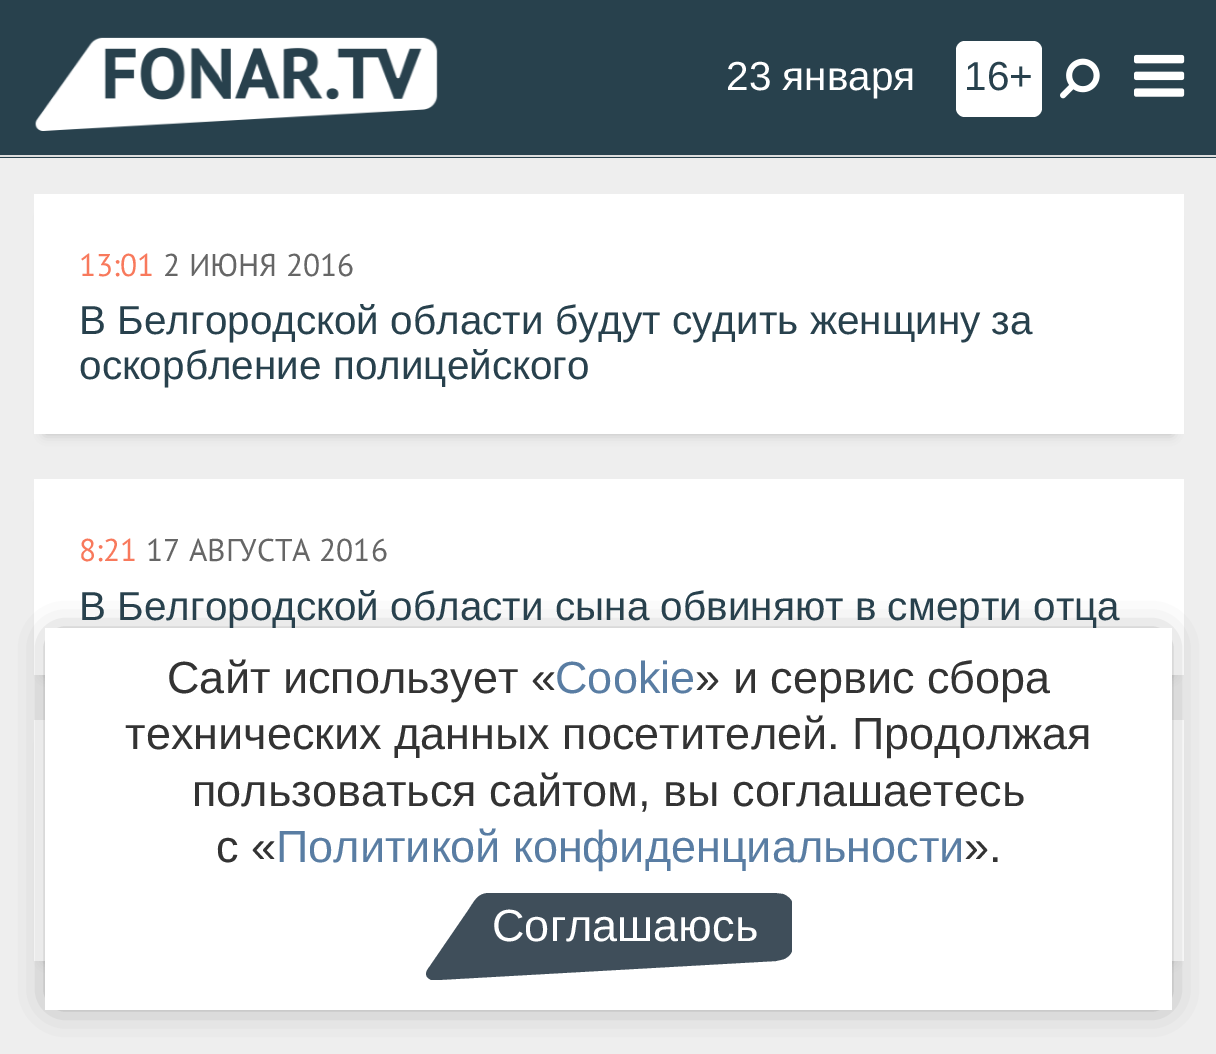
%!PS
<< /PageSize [1216 1054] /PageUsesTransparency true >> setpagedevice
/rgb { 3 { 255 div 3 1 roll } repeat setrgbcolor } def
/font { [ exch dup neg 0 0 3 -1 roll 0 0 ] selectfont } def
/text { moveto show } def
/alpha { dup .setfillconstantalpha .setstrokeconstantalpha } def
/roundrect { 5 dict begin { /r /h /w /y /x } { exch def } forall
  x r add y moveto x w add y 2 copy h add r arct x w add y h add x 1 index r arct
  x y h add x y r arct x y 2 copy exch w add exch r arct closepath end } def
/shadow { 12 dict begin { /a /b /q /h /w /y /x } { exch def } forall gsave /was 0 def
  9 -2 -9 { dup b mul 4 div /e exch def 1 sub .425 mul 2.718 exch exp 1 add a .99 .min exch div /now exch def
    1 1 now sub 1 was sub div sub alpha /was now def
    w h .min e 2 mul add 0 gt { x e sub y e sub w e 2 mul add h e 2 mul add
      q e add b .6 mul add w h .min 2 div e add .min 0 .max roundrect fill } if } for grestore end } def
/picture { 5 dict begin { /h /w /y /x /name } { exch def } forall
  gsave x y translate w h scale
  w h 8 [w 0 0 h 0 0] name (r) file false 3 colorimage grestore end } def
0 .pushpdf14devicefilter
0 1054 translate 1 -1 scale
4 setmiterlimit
238 238 238 rgb
0 0 1216 1054 rectfill
40 65 77 rgb
0 0 1216 158 rectfill
221 221 221 rgb
0 155 1216 2 rectfill
(img_01.rgb) 35 37 403 94 picture
255 255 255 rgb
956 41 86 76 9 roundrect fill
(img_02.rgb) 1060 58 40 41 picture
(img_03.rgb) 1134 54 51 43 picture
0 0 0 rgb
45 216 1127 218 0 5.5 0.2 shadow
255 255 255 rgb
34 194 1150 240 rectfill
0 0 0 rgb
45 502 1127 173 0 5.5 0.2 shadow
255 255 255 rgb
34 479 1150 196 rectfill
0 0 0 rgb
45 743 1127 218 0 5.5 0.2 shadow
255 255 255 rgb
34 720 1150 241 rectfill
0 0 0 rgb
56 639 1105 360 0 17 0.5 shadow
/Arimo-Regular 40.5 font
255 255 255 rgb
(23 января) 726 90 text
40 65 77 rgb
(16+) 964 90 text
/PTSans-Regular 31.5 font
248 121 92 rgb
(13:01) 79 276 text
102 102 102 rgb
(2 ИЮНЯ 2016) 163 276 text
/Arimo-Regular 40.5 font
40 65 77 rgb
(В Белгородской области будут судить женщину за) 79 334 text
(оскорбление полицейского) 79 379 text
/PTSans-Regular 31.5 font
248 121 92 rgb
(8:21) 79 561 text
102 102 102 rgb
(17 АВГУСТА 2016) 146 561 text
/Arimo-Regular 40.5 font
40 65 77 rgb
(В Белгородской области сына обвиняют в смерти отца) 79 620 text
255 255 255 rgb
45 628 1127 382 rectfill
/Arimo-Regular 45 font
51 51 51 rgb
(Сайт использует «) 167 693 text
89 125 163 rgb
(Cookie) 555 693 text
51 51 51 rgb
(» и сервис сбора) 695 693 text
(технических данных посетителей. Продолжая) 125 749 text
(пользоваться сайтом, вы соглашаетесь) 192 806 text
(с «) 216 862 text
89 125 163 rgb
(Политикой конфиденциальности) 276 862 text
51 51 51 rgb
(».) 964 862 text
63 78 90 rgb
775 893 moveto 8 1 rlineto 5 2 8 5 9 8 rcurveto 0 49 rlineto -1 3 -3 5 -6 7 rcurveto -3 2 -7 2 -10 3 rcurveto -338 19 rlineto -7 0 rlineto -3 -2 rlineto -4 -4 -1 -8 2 -12 rcurveto 37 -54 rlineto 7 -10 10 -19 22 -19 rcurveto closepath fill
255 255 255 rgb
(Соглашаюсь) 492 941 text
.poppdf14devicefilter showpage
